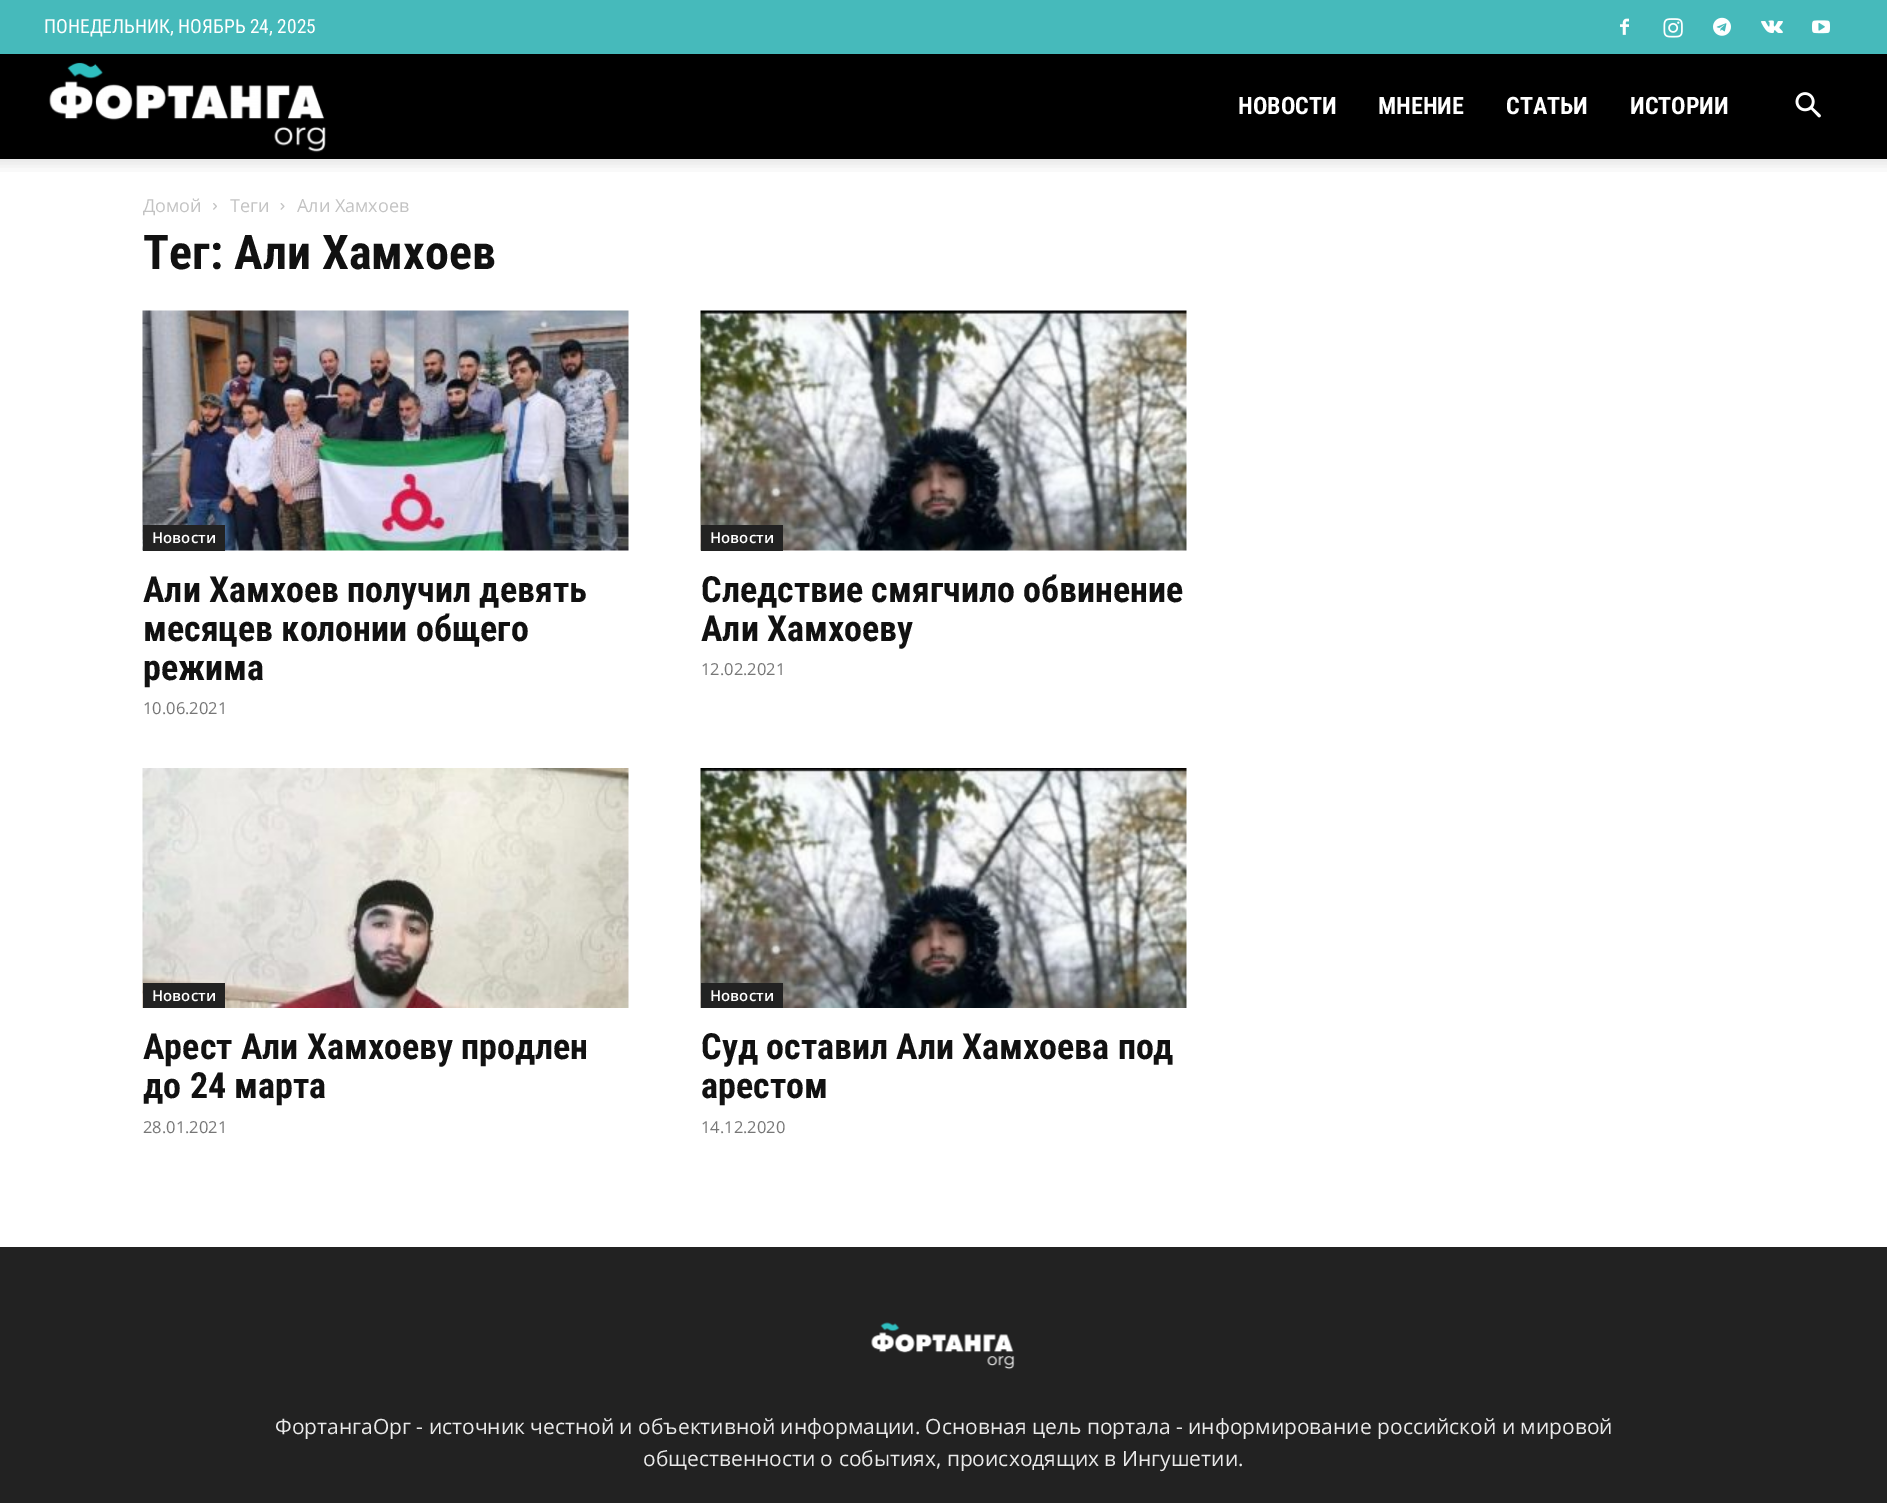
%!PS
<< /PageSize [1887 1503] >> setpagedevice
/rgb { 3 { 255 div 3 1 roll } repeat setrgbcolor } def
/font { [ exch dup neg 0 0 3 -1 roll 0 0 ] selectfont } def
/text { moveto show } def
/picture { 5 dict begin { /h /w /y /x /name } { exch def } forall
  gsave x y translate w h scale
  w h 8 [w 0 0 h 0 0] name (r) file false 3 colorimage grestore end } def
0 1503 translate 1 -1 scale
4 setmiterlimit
255 255 255 rgb
0 0 1887 1503 rectfill
70 186 187 rgb
0 0 1887 54 rectfill
(img_01.rgb) 1620 18 9 17 picture
(img_02.rgb) 1663 18 20 20 picture
(img_03.rgb) 1713 17 18 19 picture
(img_04.rgb) 1761 20 22 14 picture
(img_05.rgb) 1812 20 18 14 picture
0 0 0 rgb
0 54 1887 105 rectfill
(img_06.rgb) 49 62 277 91 picture
(img_07.rgb) 1795 92 26 26 picture
(img_08.rgb) 0 159 1887 13 picture
(img_09.rgb) 213 203 4 7 picture
(img_10.rgb) 280 203 5 7 picture
(img_11.rgb) 142 310 487 241 picture
34 34 34 rgb
143 525 82 26 rectfill
(img_12.rgb) 700 310 487 241 picture
701 525 82 26 rectfill
(img_13.rgb) 142 768 487 240 picture
143 983 82 25 rectfill
(img_14.rgb) 700 768 487 240 picture
701 983 82 25 rectfill
0 1247 1887 256 rectfill
(img_15.rgb) 871 1322 144 48 picture
/RobotoCondensed-Regular 19.5 font
255 255 255 rgb
(ПОНЕДЕЛЬНИК, НОЯБРЬ 24, 2025) 44 33 text
/RobotoCondensed-Bold 24 font
(НОВОСТИ) 1238 114 text
(МНЕНИЕ) 1378 114 text
(СТАТЬИ) 1506 114 text
(ИСТОРИИ) 1630 114 text
/OpenSans-Regular 18 font
195 195 195 rgb
(Домой) 143 212 text
(Теги) 230 212 text
(Али Хамхоев) 297 212 text
/RobotoCondensed-Bold 48 font
17 17 17 rgb
(Тег: Али Хамхоев) 143 269 text
/OpenSans-SemiBold 15 font
255 255 255 rgb
(Новости) 152 543 text
/RobotoCondensed-Bold 36 font
17 17 17 rgb
(Али Хамхоев получил девять) 143 602 text
(месяцев колонии общего) 143 641 text
(режима) 143 680 text
/OpenSans-Regular 16.5 font
118 118 118 rgb
(10.06.2021) 143 714 text
/OpenSans-SemiBold 15 font
255 255 255 rgb
(Новости) 710 543 text
/RobotoCondensed-Bold 36 font
17 17 17 rgb
(Следствие смягчило обвинение) 701 602 text
(Али Хамхоеву) 701 641 text
/OpenSans-Regular 16.5 font
118 118 118 rgb
(12.02.2021) 701 675 text
/OpenSans-SemiBold 15 font
255 255 255 rgb
(Новости) 152 1001 text
/RobotoCondensed-Bold 36 font
17 17 17 rgb
(Арест Али Хамхоеву продлен) 143 1059 text
(до 24 марта) 143 1098 text
/OpenSans-Regular 16.5 font
118 118 118 rgb
(28.01.2021) 143 1133 text
/OpenSans-SemiBold 15 font
255 255 255 rgb
(Новости) 710 1001 text
/RobotoCondensed-Bold 36 font
17 17 17 rgb
(Суд оставил Али Хамхоева под) 701 1059 text
(арестом) 701 1098 text
/OpenSans-Regular 16.5 font
118 118 118 rgb
(14.12.2020) 701 1133 text
/OpenSans-Regular 21 font
234 234 234 rgb
(ФортангаОрг - источник честной и объективной информации. Основная цель портала - информирование российской и мировой) 275 1434 text
(общественности о событиях, происходящих в Ингушетии.) 643 1466 text
showpage
